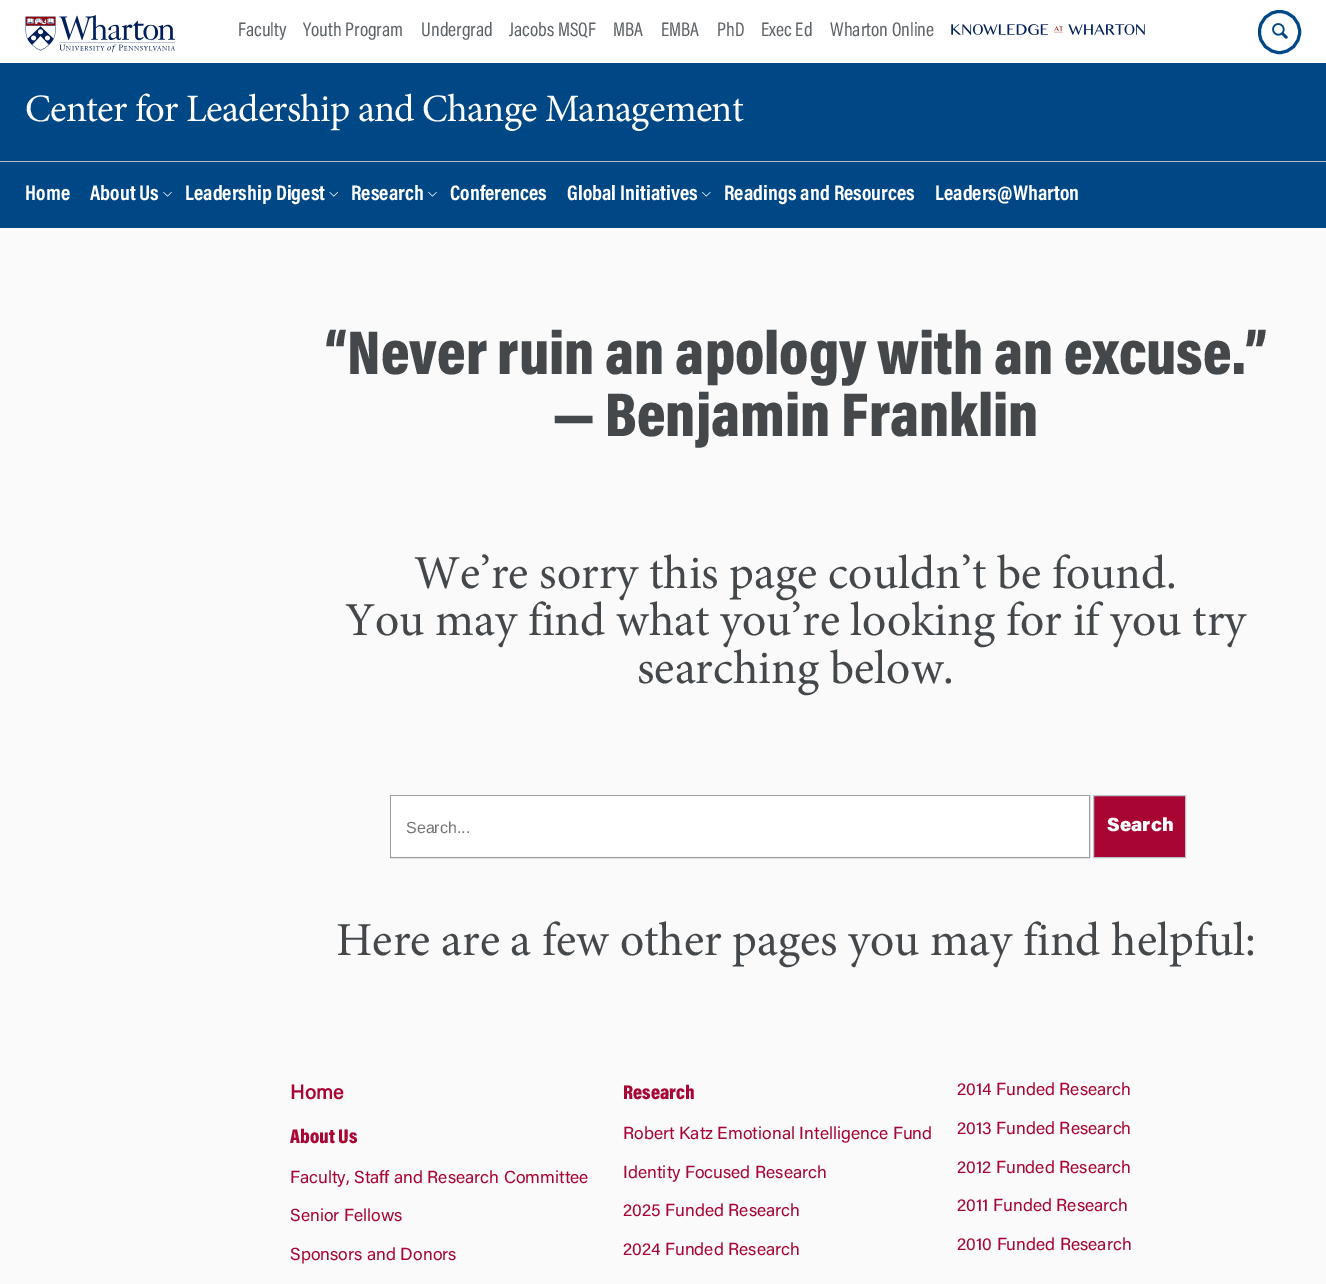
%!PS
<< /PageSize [1326 1284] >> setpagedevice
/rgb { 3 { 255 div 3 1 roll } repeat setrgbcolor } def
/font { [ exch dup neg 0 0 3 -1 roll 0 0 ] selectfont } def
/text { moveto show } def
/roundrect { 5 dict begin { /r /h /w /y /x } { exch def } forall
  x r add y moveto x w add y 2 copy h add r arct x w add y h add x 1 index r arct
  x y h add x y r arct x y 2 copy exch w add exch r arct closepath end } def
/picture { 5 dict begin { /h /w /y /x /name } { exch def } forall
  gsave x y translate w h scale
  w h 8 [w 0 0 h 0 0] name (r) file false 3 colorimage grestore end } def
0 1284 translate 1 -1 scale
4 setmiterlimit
250 250 250 rgb
0 0 1326 1284 rectfill
255 255 255 rgb
0 0 1326 63 rectfill
(img_01.rgb) 25 15 150 38 picture
(img_02.rgb) 951 24 194 11 picture
0 71 133 rgb
3 setlinewidth
1259.5 11.5 40 41 20 roundrect stroke
(img_03.rgb) 1272 23 16 16 picture
0 63 1326 165 rectfill
180 183 190 rgb
0 161 1326 1 rectfill
(img_04.rgb) 163 192 9 5 picture
(img_05.rgb) 329 192 9 5 picture
(img_04.rgb) 428 192 9 5 picture
(img_06.rgb) 702 192 9 5 picture
158 158 158 rgb
1 setlinewidth
390.5 795.5 699 62 rectstroke
255 255 255 rgb
391 796 698 60 rectfill
169 5 51 rgb
1093.5 795.5 moveto 92 0 rlineto 0 62 rlineto -92 0 rlineto closepath gsave fill grestore
188 195 202 rgb
stroke
/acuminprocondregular-Regular 19.75 font
92 98 102 rgb
(Faculty) 238 36 text
(Youth Program) 303 36 text
(Undergrad) 421 36 text
(Jacobs MSQF) 509 36 text
(MBA) 613 36 text
(EMBA) 661 36 text
(PhD) 717 36 text
(Exec Ed) 761 36 text
(Wharton Online) 830 36 text
/minion-Regular 38.75 font
255 255 255 rgb
25 121 moveto -0.75 0 (Center for Leadership and Change Management) ashow
/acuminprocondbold-Bold 21.25 font
(Home) 25 200 text
(About Us) 90 200 text
(Leadership Digest) 185 200 text
(Research) 351 200 text
(Conferences) 450 200 text
(Global Initiatives) 567 200 text
(Readings and Resources) 724 200 text
(Leaders@Wharton) 935 200 text
/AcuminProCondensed-Black 62.5 font
68 72 75 rgb
(“Never ruin an apology with an excuse.”) 325 374 text
(— Benjamin Franklin) 553 436 text
/minion-Regular 47.5 font
(We’re sorry this page couldn’t be found.) 414 588 text
(You may find what you’re looking for if you try) 345 635 text
(searching below.) 637 683 text
/LiberationSans-Regular 16 font
117 117 117 rgb
(Search...) 406 833 text
/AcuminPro-Black 19 font
255 255 255 rgb
(Search) 1107 831 text
/minion-Regular 47.5 font
68 72 75 rgb
(Here are a few other pages you may find helpful:) 336 955 text
/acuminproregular-Bold 20 font
169 5 51 rgb
(Home) 290 1099 text
/acuminproregular-Regular 17.5 font
(2014 Funded Research) 957 1095 text
(Robert Katz Emotional Intelligence Fund) 623 1139 text
(2013 Funded Research) 957 1134 text
(Identity Focused Research) 623 1178 text
(2012 Funded Research) 957 1173 text
(2025 Funded Research) 623 1216 text
(2011 Funded Research) 957 1211 text
(2024 Funded Research) 623 1255 text
(2010 Funded Research) 957 1250 text
/AcuminProCondensed-Black 20 font
(Research) 623 1099 text
(About Us) 290 1143 text
/acuminproregular-Regular 17.5 font
(Faculty, Staff and Research Committee) 290 1183 text
(Senior Fellows) 290 1221 text
(Sponsors and Donors) 290 1260 text
showpage
